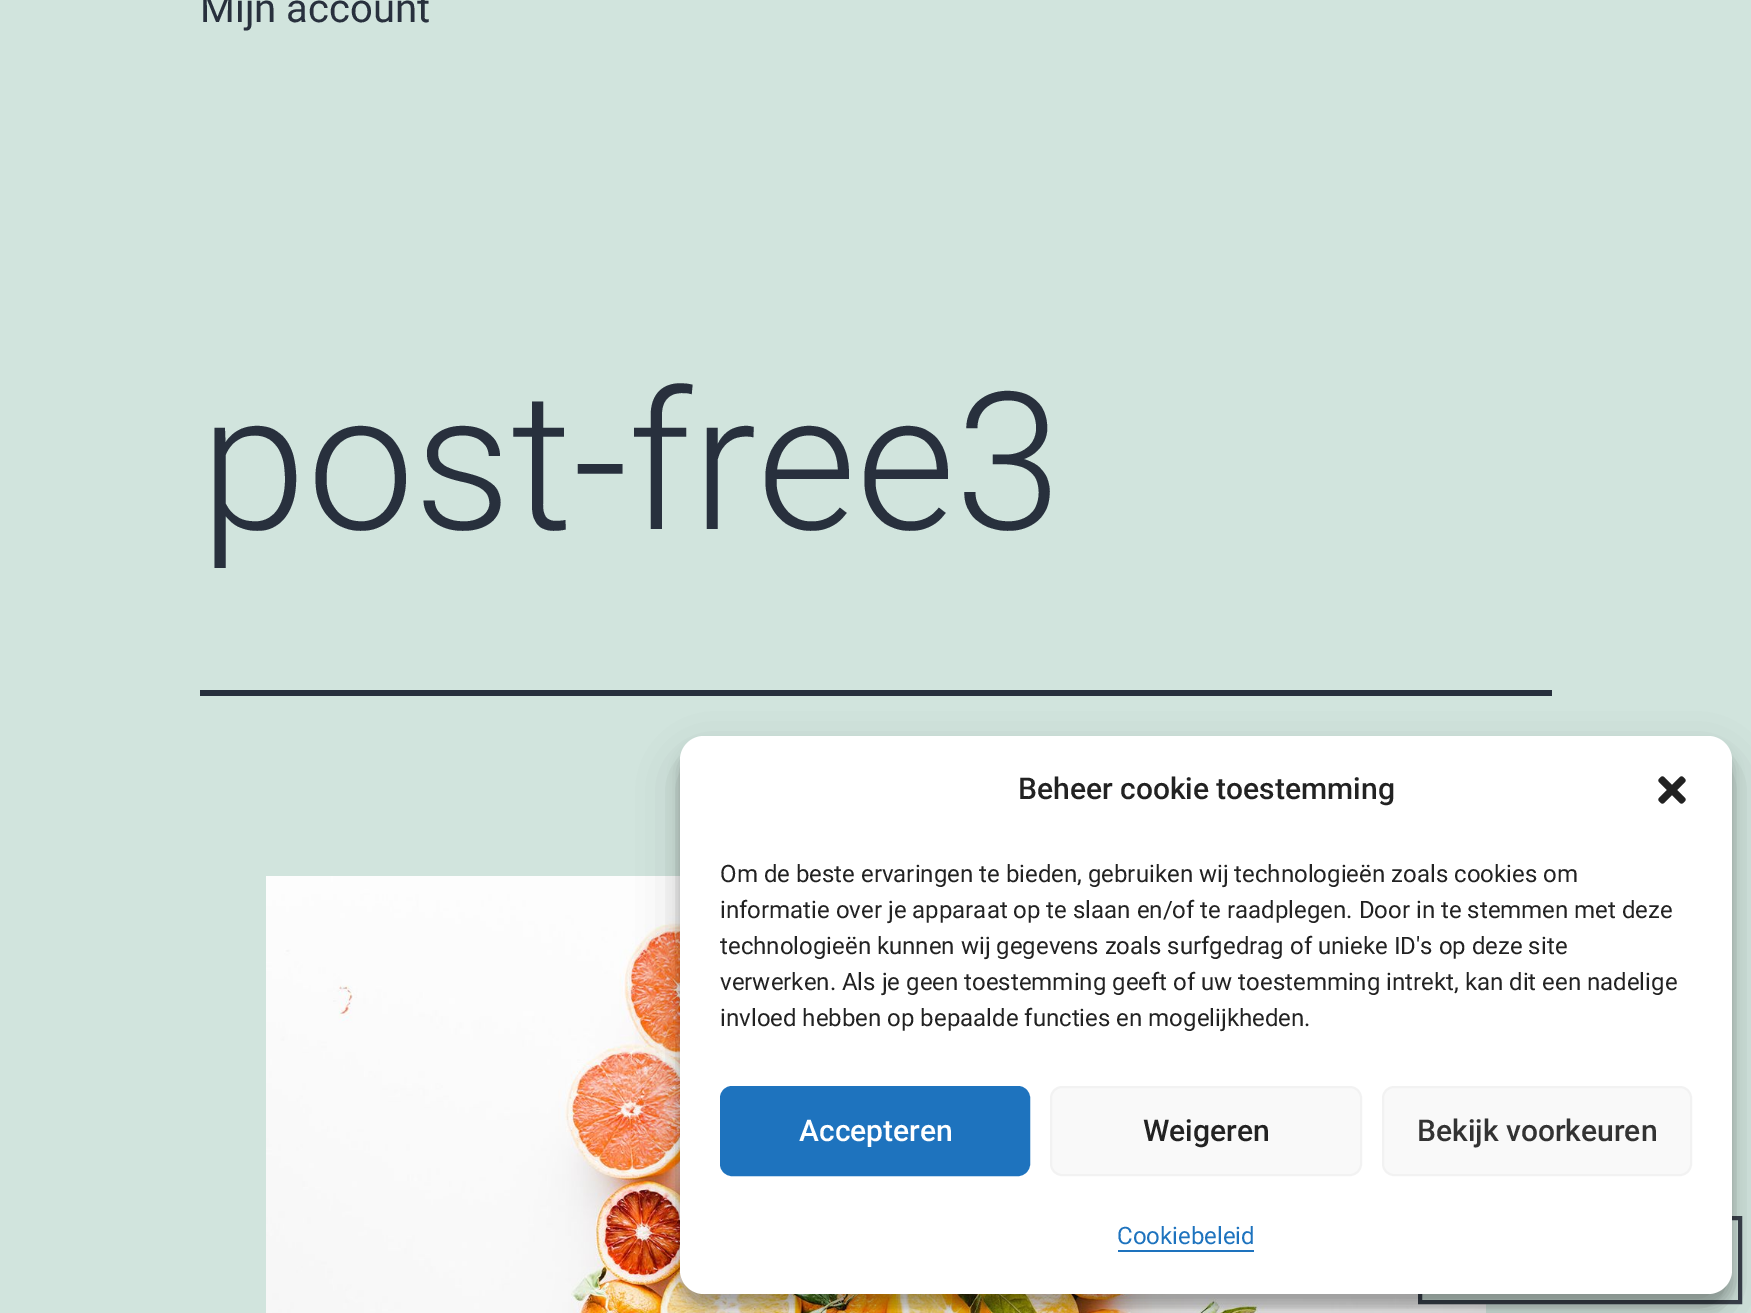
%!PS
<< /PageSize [1751 1313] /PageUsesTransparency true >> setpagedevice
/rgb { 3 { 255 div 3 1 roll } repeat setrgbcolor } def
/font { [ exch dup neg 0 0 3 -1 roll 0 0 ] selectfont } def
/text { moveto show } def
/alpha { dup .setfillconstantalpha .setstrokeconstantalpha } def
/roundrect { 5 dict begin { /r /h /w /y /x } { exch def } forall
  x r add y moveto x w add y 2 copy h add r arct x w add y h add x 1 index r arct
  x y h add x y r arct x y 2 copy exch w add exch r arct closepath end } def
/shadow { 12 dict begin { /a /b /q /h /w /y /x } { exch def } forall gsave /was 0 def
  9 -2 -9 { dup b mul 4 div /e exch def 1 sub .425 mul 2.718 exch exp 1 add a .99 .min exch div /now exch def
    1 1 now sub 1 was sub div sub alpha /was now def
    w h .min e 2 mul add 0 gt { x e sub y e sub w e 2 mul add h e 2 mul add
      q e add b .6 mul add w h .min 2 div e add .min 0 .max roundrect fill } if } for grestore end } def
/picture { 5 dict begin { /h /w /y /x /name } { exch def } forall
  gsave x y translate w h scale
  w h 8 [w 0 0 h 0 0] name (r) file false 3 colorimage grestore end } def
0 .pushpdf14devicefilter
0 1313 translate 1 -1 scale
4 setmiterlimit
209 228 221 rgb
0 0 1751 1313 rectfill
40 48 61 rgb
200 690 1352 6 rectfill
(img_01.rgb) 266 876 1220 437 picture
209 228 221 rgb
1422 1220 64 80 rectfill
57 65 77 rgb
4 setlinewidth
1420 1218 320 84 rectstroke
0 0 0 rgb
680 748 1052 558 24 6 0.23 shadow
680 756 1052 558 24 20 0.19 shadow
255 255 255 rgb
680 736 1052 558 24 roundrect fill
(img_02.rgb) 1658 776 28 28 picture
30 115 190 rgb
721 1087 308 88 11 roundrect gsave fill grestore
2 setlinewidth
stroke
249 249 249 rgb
1051 1087 310 88 11 roundrect gsave fill grestore
242 242 242 rgb
stroke
249 249 249 rgb
1383 1087 308 88 11 roundrect gsave fill grestore
242 242 242 rgb
stroke
30 115 190 rgb
1118 1250 136 2 rectfill
/Roboto-Regular 40 font
40 48 61 rgb
(Mijn account) 200 22 text
/Roboto-Light 192 font
(post-free3) 200 529 text
/Roboto-Medium 30 font
34 34 34 rgb
(Beheer cookie toestemming) 1018 799 text
/Roboto-Regular 24 font
(Om de beste ervaringen te bieden, gebruiken wij technologieën zoals cookies om) 720 882 text
(informatie over je apparaat op te slaan en/of te raadplegen. Door in te stemmen met deze) 720 918 text
(technologieën kunnen wij gegevens zoals surfgedrag of unieke ID's op deze site) 720 954 text
(verwerken. Als je geen toestemming geeft of uw toestemming intrekt, kan dit een nadelige) 720 990 text
(invloed hebben op bepaalde functies en mogelijkheden.) 720 1026 text
/Roboto-Medium 30 font
255 255 255 rgb
(Accepteren) 799 1141 text
34 34 34 rgb
(Weigeren) 1143 1141 text
51 51 51 rgb
(Bekijk voorkeuren) 1417 1141 text
/Roboto-Regular 24 font
30 115 190 rgb
(Cookiebeleid) 1117 1244 text
.poppdf14devicefilter showpage
